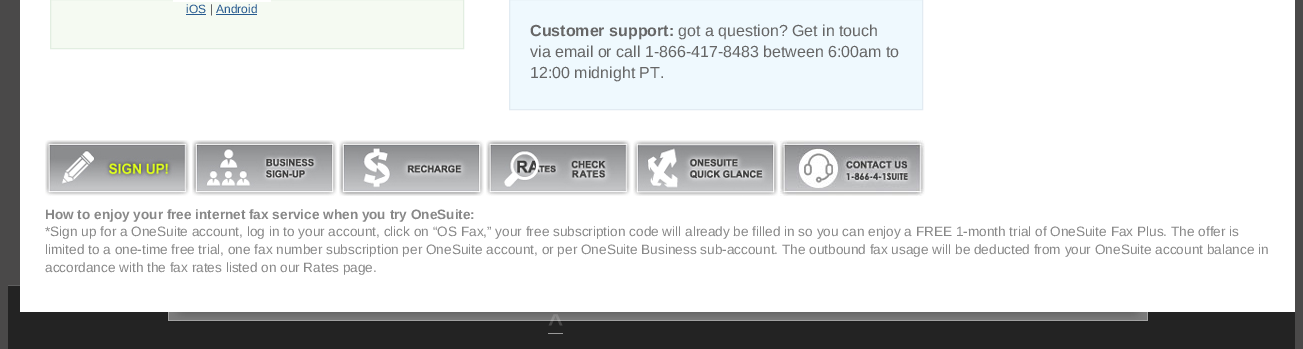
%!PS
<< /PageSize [1303 349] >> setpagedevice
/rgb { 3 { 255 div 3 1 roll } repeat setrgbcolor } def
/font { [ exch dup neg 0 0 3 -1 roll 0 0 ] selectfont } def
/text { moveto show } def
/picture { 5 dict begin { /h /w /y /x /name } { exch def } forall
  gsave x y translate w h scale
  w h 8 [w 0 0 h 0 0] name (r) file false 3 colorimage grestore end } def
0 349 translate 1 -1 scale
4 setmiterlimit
74 73 73 rgb
0 0 1303 349 rectfill
35 35 35 rgb
8 286 1287 63 rectfill
255 255 255 rgb
20 0 1275 312 rectfill
245 250 242 rgb
50.5 -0.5 moveto 413 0 rlineto 0 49 rlineto -413 0 rlineto closepath gsave fill grestore
226 238 225 rgb
stroke
255 255 255 rgb
173 0 98 2 rectfill
40 91 144 rgb
186 14 20 1 rectfill
216 14 41 1 rectfill
239 249 254 rgb
509.5 -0.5 moveto 413 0 rlineto 0 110 rlineto -413 0 rlineto closepath gsave fill grestore
226 235 242 rgb
stroke
(img_01.rgb) 45 140 145 56 picture
(img_02.rgb) 192 140 145 56 picture
(img_03.rgb) 339 140 145 56 picture
(img_04.rgb) 486 140 145 56 picture
(img_05.rgb) 633 140 145 56 picture
(img_06.rgb) 780 140 145 56 picture
95 95 95 rgb
8 285 12 1 rectfill
153 153 153 rgb
548 333 15 1 rectfill
/LiberationSans-Regular 12 font
40 91 144 rgb
(iOS) 186 13 text
102 102 102 rgb
(|) 210 13 text
40 91 144 rgb
(Android) 216 13 text
/LiberationSans-Bold 16 font
102 102 102 rgb
(Customer support:) 530 36 text
/LiberationSans-Regular 16 font
(got a question? Get in touch) 678 36 text
(via email or call 1-866-417-8483 between 6:00am to) 530 57 text
(12:00 midnight PT.) 530 78 text
/LiberationSans-Bold 13.6 font
136 136 136 rgb
(How to enjoy your free internet fax service when you try OneSuite:) 45 219 text
/LiberationSans-Regular 13.6 font
(*Sign up for a OneSuite account, log in to your account, click on “OS Fax,” your free subscription code will already be filled in so you can enjoy a FREE 1-month trial of OneSuite Fax Plus. The offer is) 45 236 text
(limited to a one-time free trial, one fax number subscription per OneSuite account, or per OneSuite Business sub-account. The outbound fax usage will be deducted from your OneSuite account balance in) 45 254 text
(accordance with the fax rates listed on our Rates page.) 45 272 text
/LiberationSans-Bold 26 font
74 73 73 rgb
(^) 548 332 text
(img_07.rgb) 167 312 982 11 picture
showpage
